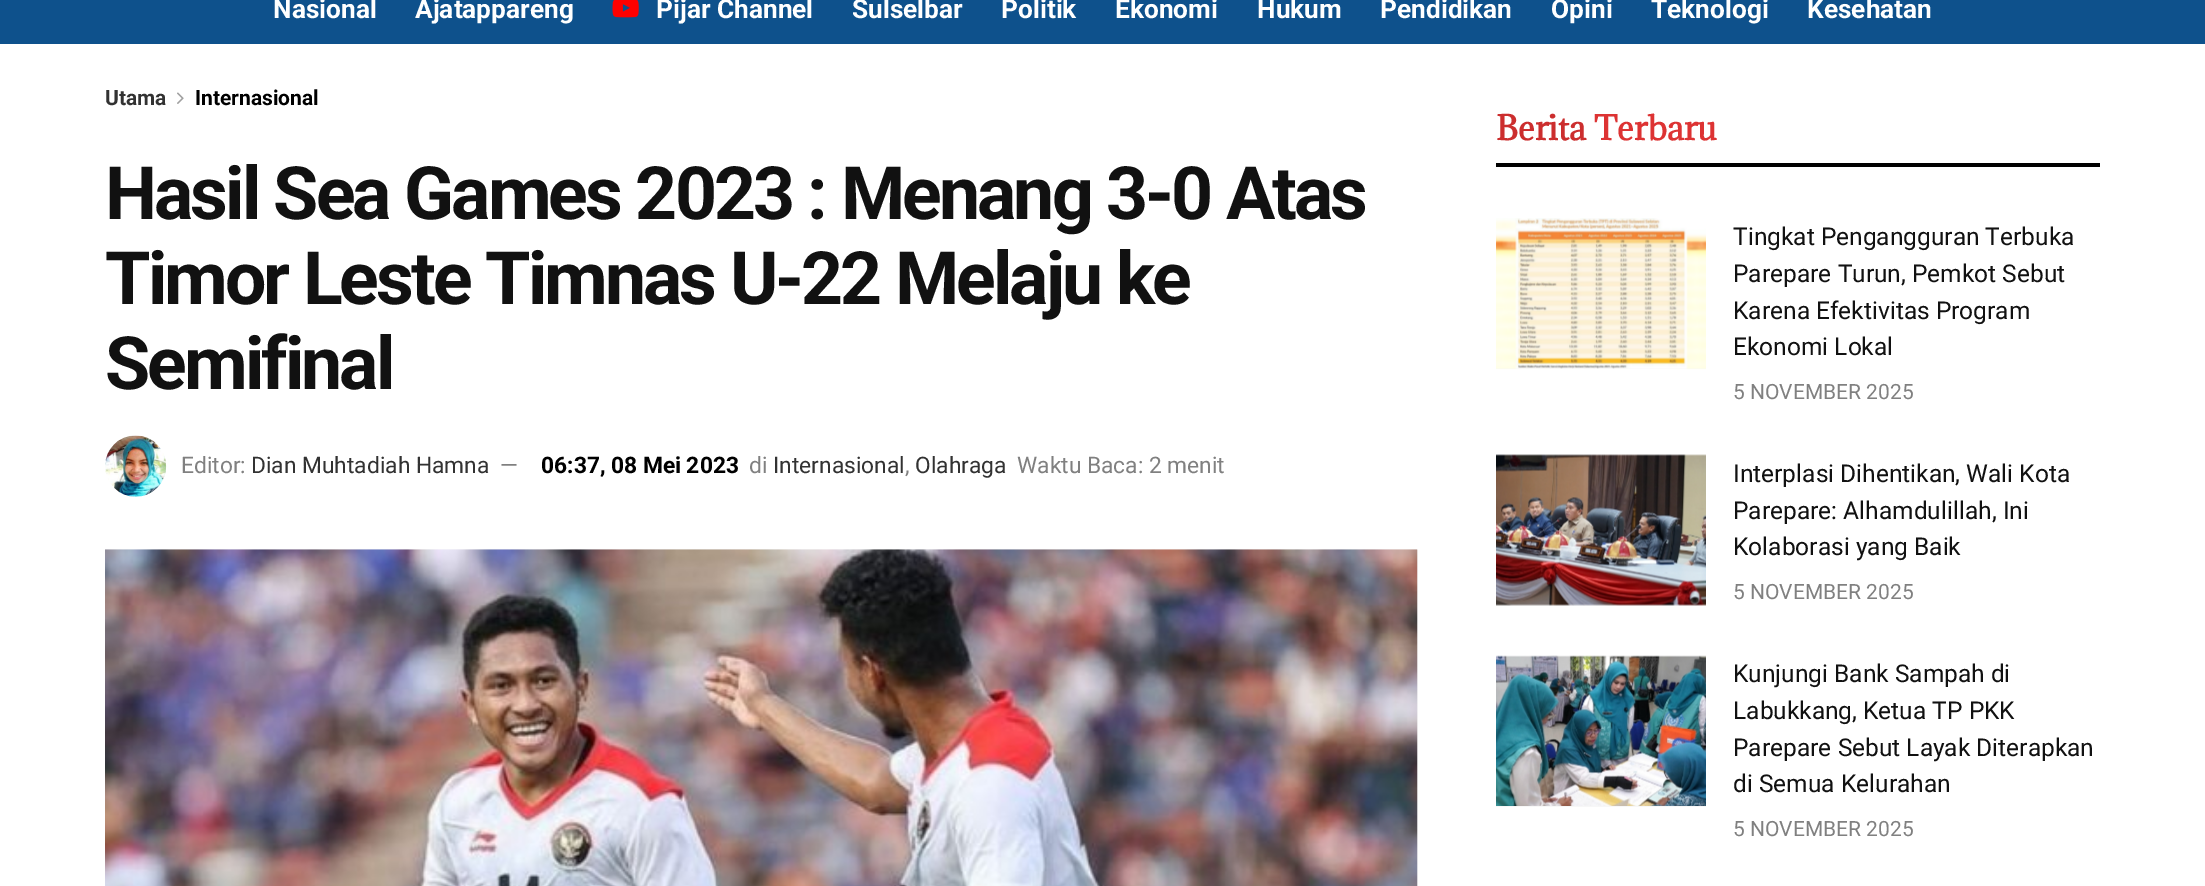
%!PS
<< /PageSize [2205 886] >> setpagedevice
/rgb { 3 { 255 div 3 1 roll } repeat setrgbcolor } def
/font { [ exch dup neg 0 0 3 -1 roll 0 0 ] selectfont } def
/text { moveto show } def
/picture { 5 dict begin { /h /w /y /x /name } { exch def } forall
  gsave x y translate w h scale
  w h 8 [w 0 0 h 0 0] name (r) file false 3 colorimage grestore end } def
0 886 translate 1 -1 scale
4 setmiterlimit
255 255 255 rgb
0 0 2205 886 rectfill
14 81 140 rgb
0 0 2205 44 rectfill
(img_01.rgb) 612 0 27 18 picture
(img_02.rgb) 177 92 7 12 picture
(img_03.rgb) 105 435 62 62 picture
247 247 247 rgb
1417 550 1 336 rectfill
250 250 250 rgb
105 549 1312 1 rectfill
(img_04.rgb) 105 549 1313 337 picture
0 0 0 rgb
1496 163 604 4 rectfill
247 247 247 rgb
1496 219 210 150 rectfill
(img_05.rgb) 1496 218 210 152 picture
1496 455 210 151 rectfill
(img_06.rgb) 1496 454 210 152 picture
1496 656 210 151 rectfill
(img_07.rgb) 1496 655 210 151 picture
/Roboto-Bold 26.25 font
255 255 255 rgb
(Nasional) 273 18 text
(Ajatappareng) 415 18 text
(Pijar Channel) 656 18 text
(Sulselbar) 852 18 text
(Politik) 1001 18 text
(Ekonomi) 1115 18 text
(Hukum) 1257 18 text
(Pendidikan) 1380 18 text
(Opini) 1551 18 text
(Teknologi) 1651 18 text
(Kesehatan) 1807 18 text
/Roboto-Bold 21 font
50 50 50 rgb
(Utama) 105 105 text
0 0 0 rgb
(Internasional) 195 105 text
/Roboto-Bold 73.5 font
17 17 17 rgb
105 219 moveto -2.95 0 (Hasil Sea Games 2023 : Menang 3-0 Atas) ashow
105 304 moveto -2.95 0 (Timor Leste Timnas U-22 Melaju ke) ashow
105 389 moveto -2.95 0 (Semifinal) ashow
/Roboto-Regular 22.75 font
128 128 128 rgb
(Editor:) 181 473 text
50 50 50 rgb
(Dian Muhtadiah Hamna) 251 473 text
128 128 128 rgb
(—) 500 473 text
/Roboto-Bold 22.75 font
0 0 0 rgb
(06:37, 08 Mei 2023) 541 473 text
/Roboto-Regular 22.75 font
128 128 128 rgb
(di) 749 473 text
50 50 50 rgb
(Internasional) 773 473 text
128 128 128 rgb
(,) 905 473 text
50 50 50 rgb
(Olahraga) 915 473 text
128 128 128 rgb
(Waktu Baca: 2 menit) 1017 473 text
/Adamina-Bold 31.5 font
204 46 46 rgb
(Berita) 1496 140 text
221 51 51 rgb
(Terbaru) 1594 140 text
/Roboto-Regular 24.5 font
17 17 17 rgb
(Tingkat Pengangguran Terbuka) 1733 245 text
(Parepare Turun, Pemkot Sebut) 1733 282 text
(Karena Efektivitas Program) 1733 319 text
(Ekonomi Lokal) 1733 355 text
/Roboto-Regular 21 font
128 128 128 rgb
(5 NOVEMBER 2025) 1733 399 text
/Roboto-Regular 24.5 font
17 17 17 rgb
(Interplasi Dihentikan, Wali Kota) 1733 482 text
(Parepare: Alhamdulillah, Ini) 1733 519 text
(Kolaborasi yang Baik) 1733 555 text
/Roboto-Regular 21 font
128 128 128 rgb
(5 NOVEMBER 2025) 1733 599 text
/Roboto-Regular 24.5 font
17 17 17 rgb
(Kunjungi Bank Sampah di) 1733 682 text
(Labukkang, Ketua TP PKK) 1733 719 text
(Parepare Sebut Layak Diterapkan) 1733 756 text
(di Semua Kelurahan) 1733 792 text
/Roboto-Regular 21 font
128 128 128 rgb
(5 NOVEMBER 2025) 1733 836 text
showpage
